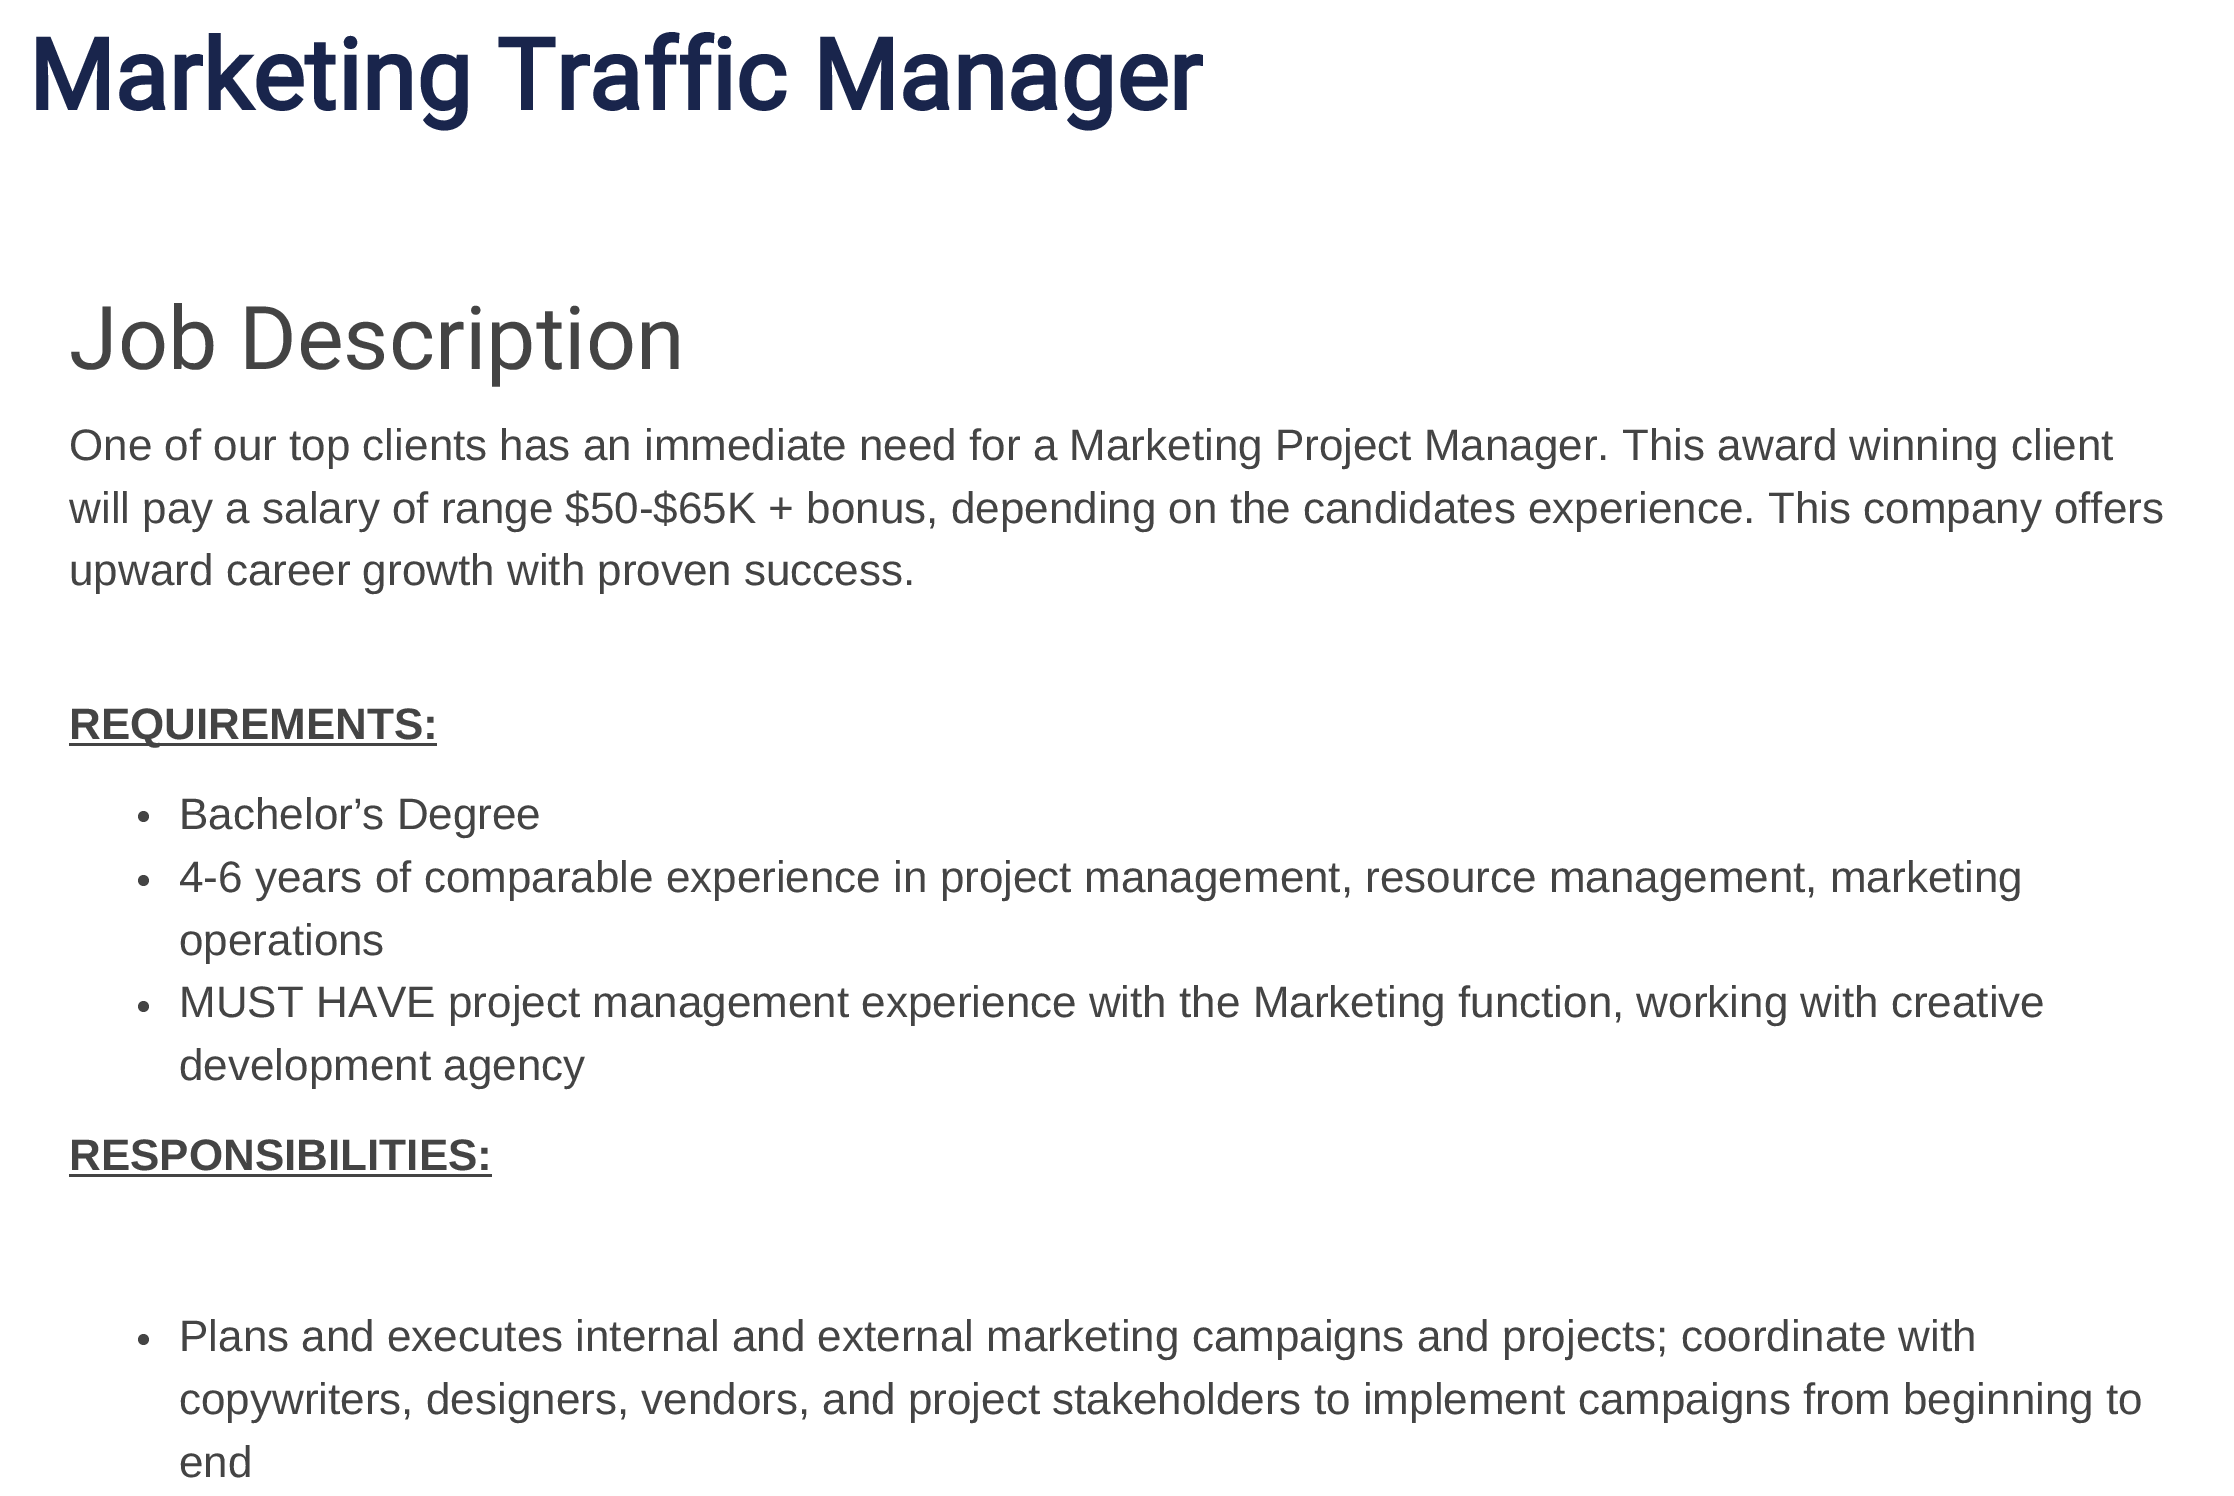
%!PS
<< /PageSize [2234 1496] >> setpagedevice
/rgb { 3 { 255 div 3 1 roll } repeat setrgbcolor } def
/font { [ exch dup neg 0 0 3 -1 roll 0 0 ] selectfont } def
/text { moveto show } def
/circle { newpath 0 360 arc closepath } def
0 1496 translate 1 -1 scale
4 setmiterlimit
255 255 255 rgb
0 0 2234 1496 rectfill
68 68 68 rgb
69 743 368 3 rectfill
143.5 816.5 5.5 circle fill
143.5 880.5 5.5 circle fill
143.5 1006.5 5.5 circle fill
69 1174 423 3 rectfill
143.5 1339.5 5.5 circle fill
/Roboto-Bold 99 font
25 37 76 rgb
(Marketing Traffic Manager) 28 110 text
/Roboto-Regular 88 font
68 68 68 rgb
(Job Description) 69 369 text
/LiberationSans-Regular 44 font
(One of our top clients has an immediate need for a Marketing Project Manager. This award winning client) 69 460 text
(will pay a salary of range $50-$65K + bonus, depending on the candidates experience. This company offers) 69 523 text
(upward career growth with proven success.) 69 585 text
/LiberationSans-Bold 44 font
(REQUIREMENTS:) 69 739 text
/LiberationSans-Regular 44 font
(Bachelor’s Degree) 179 829 text
(4-6 years of comparable experience in project management, resource management, marketing) 179 892 text
(operations) 179 955 text
(MUST HAVE project management experience with the Marketing function, working with creative) 179 1017 text
(development agency) 179 1080 text
/LiberationSans-Bold 44 font
(RESPONSIBILITIES:) 69 1170 text
/LiberationSans-Regular 44 font
(Plans and executes internal and external marketing campaigns and projects; coordinate with) 179 1351 text
(copywriters, designers, vendors, and project stakeholders to implement campaigns from beginning to) 179 1414 text
(end) 179 1477 text
showpage
